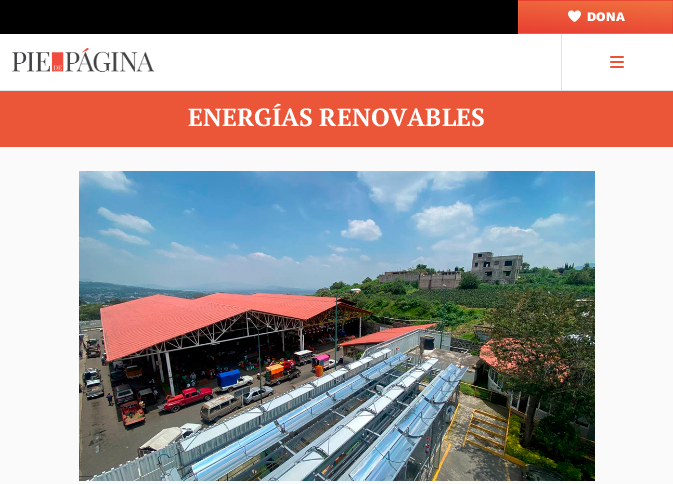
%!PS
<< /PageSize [673 484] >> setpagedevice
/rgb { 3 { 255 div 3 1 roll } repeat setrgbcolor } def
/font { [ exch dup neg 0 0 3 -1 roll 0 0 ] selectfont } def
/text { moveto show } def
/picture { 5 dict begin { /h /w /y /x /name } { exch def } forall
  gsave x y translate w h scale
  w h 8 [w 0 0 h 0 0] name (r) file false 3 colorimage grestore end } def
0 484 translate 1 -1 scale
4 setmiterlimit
250 250 250 rgb
0 0 673 484 rectfill
0 0 0 rgb
0 0 518 34 rectfill
gsave 518 0 moveto 1 0 rlineto 0 1 rlineto -1 0 rlineto closepath clip newpath
<< /ShadingType 2 /ColorSpace /DeviceRGB /Coords [444 -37 441 7.2] /Extend [true true] /Function << /FunctionType 2 /Domain [0 1] /C0 [0.941 0.451 0.243] /C1 [0.91 0.243 0.2] /N 1 >> >> shfill grestore
gsave 519 0 moveto 153 0 rlineto 0 1 rlineto -153 0 rlineto closepath clip newpath
<< /ShadingType 2 /ColorSpace /DeviceRGB /Coords [597 -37 594 7.2] /Extend [true true] /Function << /FunctionType 2 /Domain [0 1] /C0 [0.941 0.451 0.243] /C1 [0.91 0.243 0.2] /N 1 >> >> shfill grestore
gsave 672 0 moveto 1 0 rlineto 0 1 rlineto -1 0 rlineto closepath clip newpath
<< /ShadingType 2 /ColorSpace /DeviceRGB /Coords [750 -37 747 7.2] /Extend [true true] /Function << /FunctionType 2 /Domain [0 1] /C0 [0.941 0.451 0.243] /C1 [0.91 0.243 0.2] /N 1 >> >> shfill grestore
gsave 518 1 moveto 1 0 rlineto 0 32 rlineto -1 0 rlineto closepath clip newpath
<< /ShadingType 2 /ColorSpace /DeviceRGB /Coords [444 -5.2 441 39] /Extend [true true] /Function << /FunctionType 2 /Domain [0 1] /C0 [0.941 0.451 0.243] /C1 [0.91 0.243 0.2] /N 1 >> >> shfill grestore
gsave 519 1 moveto 153 0 rlineto 0 32 rlineto -153 0 rlineto closepath clip newpath
<< /ShadingType 2 /ColorSpace /DeviceRGB /Coords [597 -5.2 594 39] /Extend [true true] /Function << /FunctionType 2 /Domain [0 1] /C0 [0.941 0.451 0.243] /C1 [0.91 0.243 0.2] /N 1 >> >> shfill grestore
gsave 672 1 moveto 1 0 rlineto 0 32 rlineto -1 0 rlineto closepath clip newpath
<< /ShadingType 2 /ColorSpace /DeviceRGB /Coords [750 -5.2 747 39] /Extend [true true] /Function << /FunctionType 2 /Domain [0 1] /C0 [0.941 0.451 0.243] /C1 [0.91 0.243 0.2] /N 1 >> >> shfill grestore
gsave 518 33 moveto 1 0 rlineto 0 1 rlineto -1 0 rlineto closepath clip newpath
<< /ShadingType 2 /ColorSpace /DeviceRGB /Coords [444 27 441 71] /Extend [true true] /Function << /FunctionType 2 /Domain [0 1] /C0 [0.941 0.451 0.243] /C1 [0.91 0.243 0.2] /N 1 >> >> shfill grestore
gsave 519 33 moveto 153 0 rlineto 0 1 rlineto -153 0 rlineto closepath clip newpath
<< /ShadingType 2 /ColorSpace /DeviceRGB /Coords [597 27 594 71] /Extend [true true] /Function << /FunctionType 2 /Domain [0 1] /C0 [0.941 0.451 0.243] /C1 [0.91 0.243 0.2] /N 1 >> >> shfill grestore
gsave 672 33 moveto 1 0 rlineto 0 1 rlineto -1 0 rlineto closepath clip newpath
<< /ShadingType 2 /ColorSpace /DeviceRGB /Coords [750 27 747 71] /Extend [true true] /Function << /FunctionType 2 /Domain [0 1] /C0 [0.941 0.451 0.243] /C1 [0.91 0.243 0.2] /N 1 >> >> shfill grestore
(img_01.rgb) 568 10 13 12 picture
255 255 255 rgb
0 34 673 56 rectfill
222 226 230 rgb
0 90 673 1 rectfill
(img_02.rgb) 12 48 143 25 picture
561 34 1 56 rectfill
(img_03.rgb) 610 56 14 12 picture
236 86 56 rgb
0 91 673 56 rectfill
(img_04.rgb) 79 171 516 310 picture
/WorkSans-ExtraBold 13 font
255 255 255 rgb
(DONA) 587 21 text
/PTSerif-Bold 24.8 font
(ENERGÍAS RENOVABLES) 188 126 text
showpage
